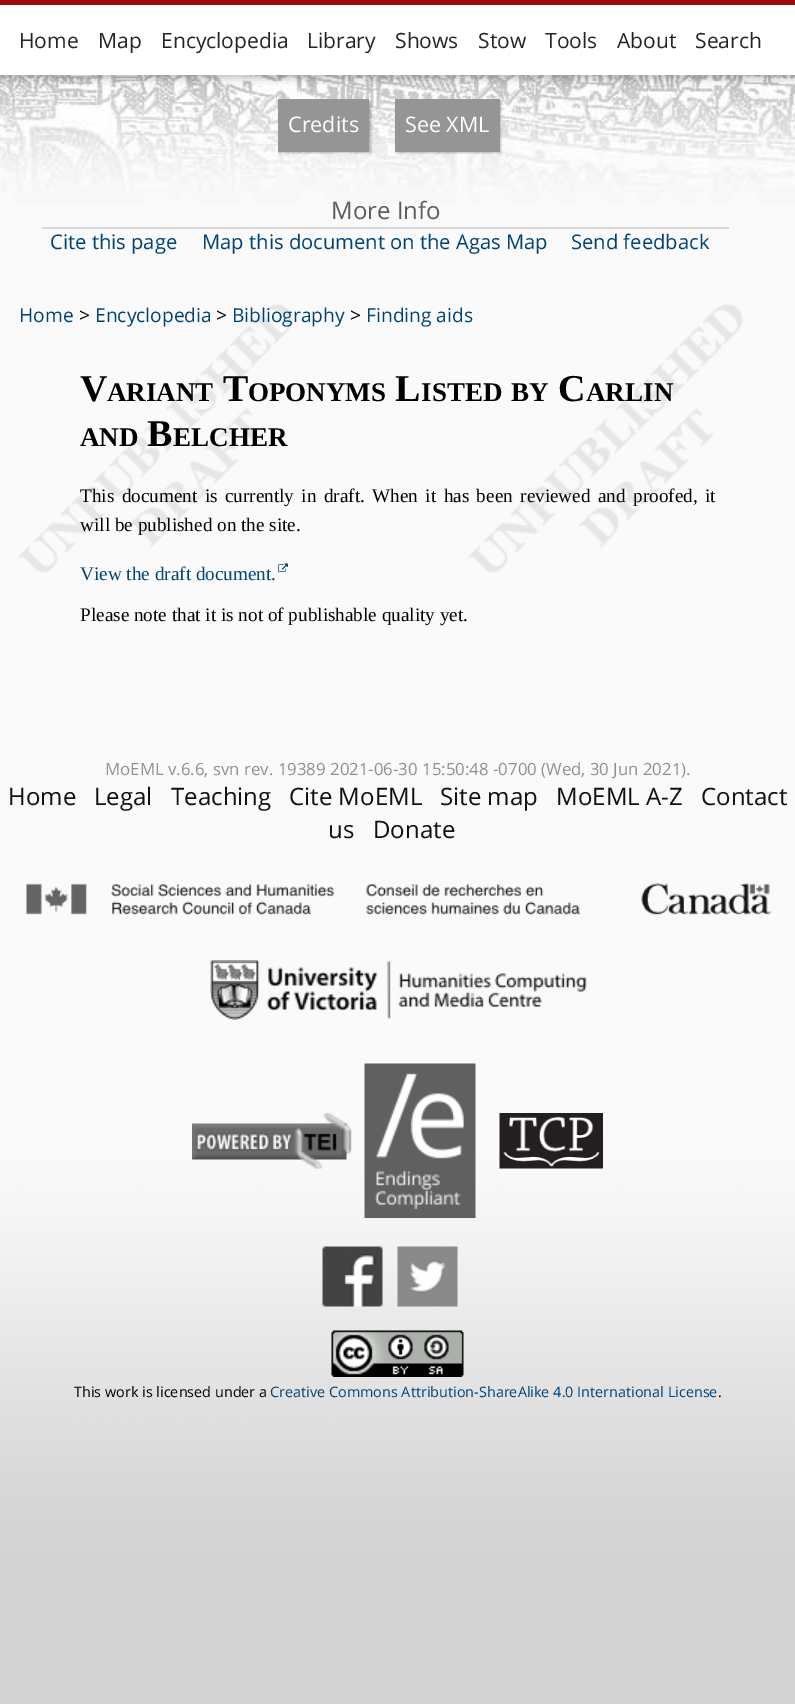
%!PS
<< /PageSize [795 1704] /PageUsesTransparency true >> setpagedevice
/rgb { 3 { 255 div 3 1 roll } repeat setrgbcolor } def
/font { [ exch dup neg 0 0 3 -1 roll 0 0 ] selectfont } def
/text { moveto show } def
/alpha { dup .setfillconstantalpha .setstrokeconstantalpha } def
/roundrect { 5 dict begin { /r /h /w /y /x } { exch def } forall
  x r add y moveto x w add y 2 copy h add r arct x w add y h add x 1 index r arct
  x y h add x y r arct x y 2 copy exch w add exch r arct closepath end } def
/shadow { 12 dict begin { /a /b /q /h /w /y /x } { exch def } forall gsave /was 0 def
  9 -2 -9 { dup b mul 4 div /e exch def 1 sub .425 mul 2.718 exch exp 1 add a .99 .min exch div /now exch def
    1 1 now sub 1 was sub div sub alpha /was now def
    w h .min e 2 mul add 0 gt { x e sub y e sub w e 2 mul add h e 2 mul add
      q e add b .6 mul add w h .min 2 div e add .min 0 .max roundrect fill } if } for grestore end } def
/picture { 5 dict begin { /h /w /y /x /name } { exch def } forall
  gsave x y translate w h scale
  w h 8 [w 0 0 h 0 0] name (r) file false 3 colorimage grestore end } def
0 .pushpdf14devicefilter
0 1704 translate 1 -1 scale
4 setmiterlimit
250 250 250 rgb
0 0 795 1704 rectfill
(img_01.rgb) 0 75 795 1629 picture
0 0 0 rgb
2 3 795 75 0 4 0.25 shadow
255 255 255 rgb
0 5 795 70 rectfill
157 10 14 rgb
0 0 795 5 rectfill
149 149 149 rgb
278 99 91 53 rectfill
gsave
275 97 moveto 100 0 rlineto 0 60 rlineto -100 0 rlineto closepath 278 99 moveto 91 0 rlineto 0 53 rlineto -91 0 rlineto closepath eoclip newpath
0 0 0 rgb
279 101 92 52 0 1 0.25 shadow
grestore
395 99 105 53 rectfill
gsave
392 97 moveto 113 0 rlineto 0 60 rlineto -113 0 rlineto closepath 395 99 moveto 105 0 rlineto 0 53 rlineto -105 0 rlineto closepath eoclip newpath
0 0 0 rgb
396 101 105 52 0 1 0.25 shadow
grestore
215 215 215 rgb
42 227 687 2 rectfill
(img_02.rgb) 18 304 725 269 picture
(img_03.rgb) 26 883 745 32 picture
(img_04.rgb) 210 960 377 60 picture
(img_05.rgb) 192 1113 160 56 picture
(img_06.rgb) 364 1063 112 155 picture
(img_07.rgb) 499 1113 104 56 picture
(img_08.rgb) 322 1246 61 61 picture
(img_09.rgb) 397 1246 61 61 picture
(img_10.rgb) 331 1330 133 47 picture
/OpenSans-Regular 21 font
37 37 37 rgb
(Home) 19 48 text
(Map) 98 48 text
(Encyclopedia) 161 48 text
(Library) 307 48 text
(Shows) 395 48 text
(Stow) 478 48 text
(Tools) 545 48 text
(About) 617 48 text
(Search) 695 48 text
/OpenSans-Regular 21.5 font
255 255 255 rgb
(Credits) 288 132 text
(See XML) 405 132 text
/OpenSans-Regular 24 font
95 94 94 rgb
(More Info) 331 219 text
/OpenSans-Regular 20.2 font
0 66 118 rgb
(Cite this page) 50 249 text
(Map this document on the Agas Map) 202 249 text
(Send feedback) 571 249 text
/OpenSans-Regular 19.2 font
(Home) 19 322 text
0 0 0 rgb
(>) 79 322 text
0 66 118 rgb
(Encyclopedia) 95 322 text
0 0 0 rgb
(>) 216 322 text
0 66 118 rgb
(Bibliography) 232 322 text
0 0 0 rgb
(>) 350 322 text
0 66 118 rgb
(Finding aids) 366 322 text
/LiberationSerif-Bold 38 font
0 0 0 rgb
(V) 80 401 text
/LiberationSerif-Bold 27 font
(ARIANT) 107 401 text
/LiberationSerif-Bold 38 font
(T) 223 401 text
/LiberationSerif-Bold 27 font
(OPONYMS) 248 401 text
/LiberationSerif-Bold 38 font
(L) 395 401 text
/LiberationSerif-Bold 27 font
(ISTED) 421 401 text
(BY) 511 401 text
/LiberationSerif-Bold 38 font
(C) 558 401 text
/LiberationSerif-Bold 27 font
(ARLIN) 586 401 text
(AND) 80 446 text
/LiberationSerif-Bold 38 font
(B) 147 446 text
/LiberationSerif-Bold 27 font
(ELCHER) 173 446 text
/LiberationSerif-Regular 19.2 font
80 502 moveto 2.6 0 32 (This document is currently in draft. When it has been reviewed and proofed, it) widthshow
(will be published on the site.) 80 531 text
0 66 118 rgb
(View the draft document.) 80 580 text
/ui-Regular 10 font
(↗) 278 572 text
/LiberationSerif-Regular 19.2 font
0 0 0 rgb
(Please note that it is not of publishable quality yet.) 80 621 text
/OpenSans-Regular 16.8 font
144 144 144 rgb
(MoEML v.6.6, svn rev. 19389 2021-06-30 15:50:48 -0700 \(Wed, 30 Jun 2021\).) 105 775 text
/OpenSans-Regular 24 font
17 17 17 rgb
(Home) 8 805 text
(Legal) 94 805 text
(Teaching) 171 805 text
(Cite MoEML) 289 805 text
(Site map) 440 805 text
(MoEML A-Z) 556 805 text
(Contact) 701 805 text
(us) 328 838 text
(Donate) 373 838 text
/OpenSans-Regular 14.4 font
0 0 0 rgb
(This work is licensed under a) 74 1397 text
0 66 118 rgb
(Creative Commons Attribution-ShareAlike 4.0 International License) 270 1397 text
0 0 0 rgb
(.) 718 1397 text
.poppdf14devicefilter showpage
